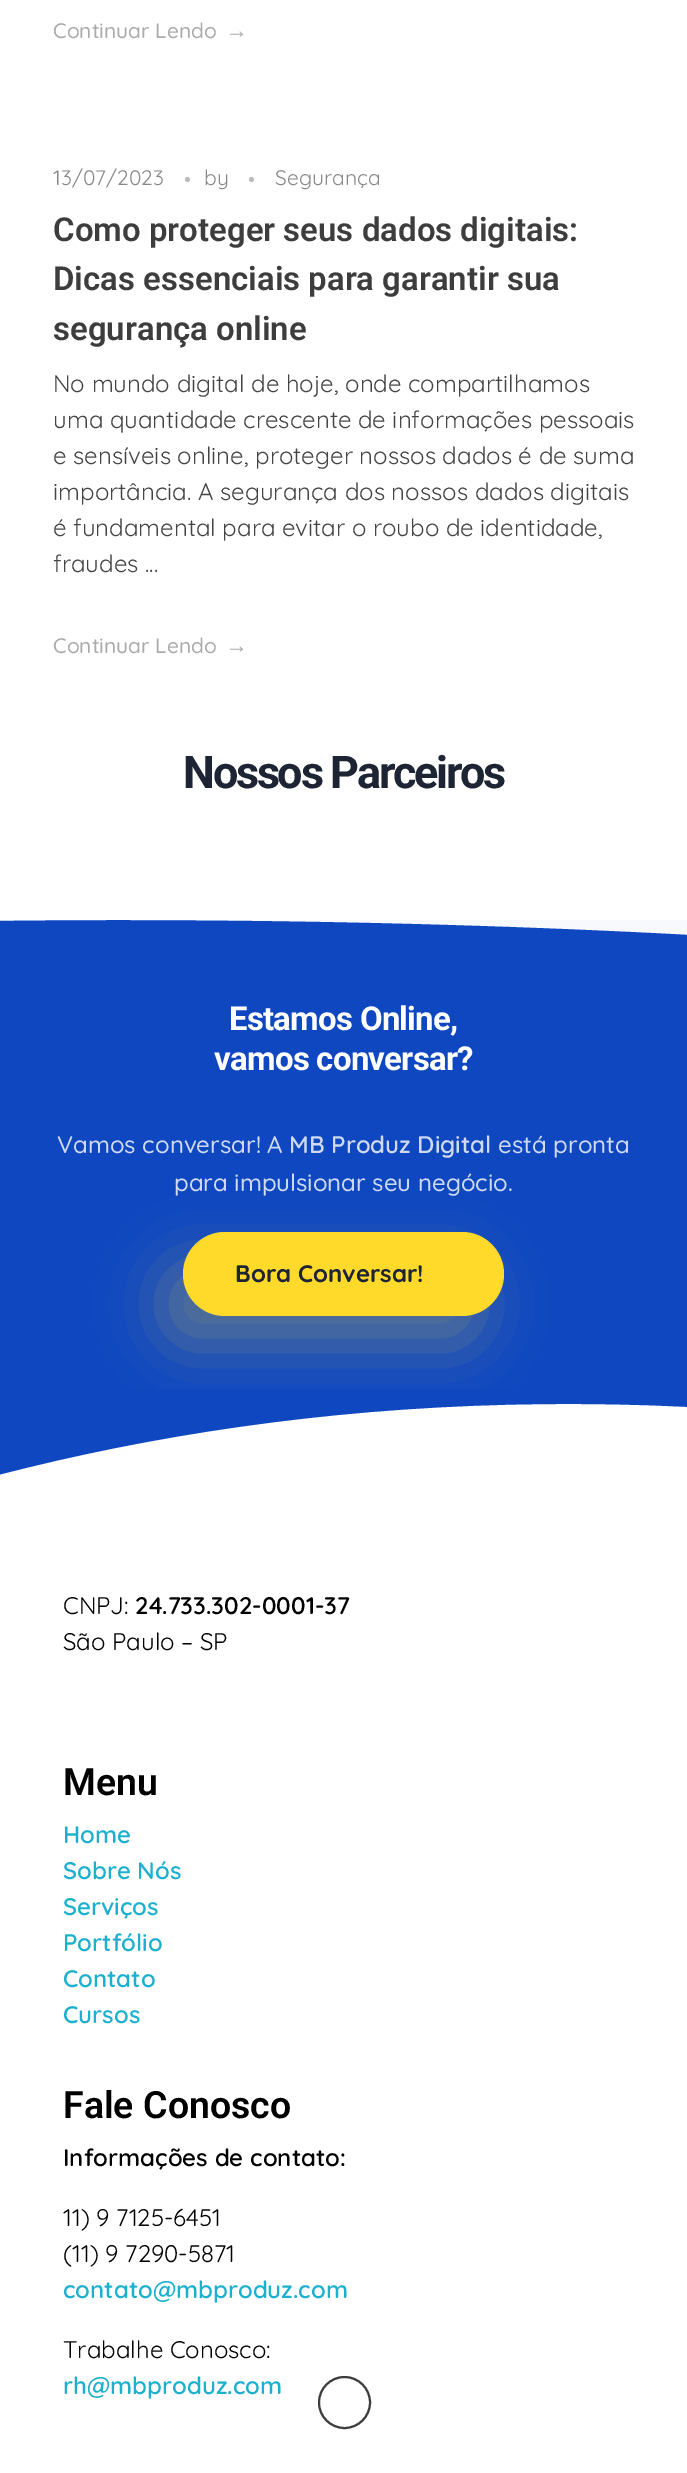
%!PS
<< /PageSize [687 2473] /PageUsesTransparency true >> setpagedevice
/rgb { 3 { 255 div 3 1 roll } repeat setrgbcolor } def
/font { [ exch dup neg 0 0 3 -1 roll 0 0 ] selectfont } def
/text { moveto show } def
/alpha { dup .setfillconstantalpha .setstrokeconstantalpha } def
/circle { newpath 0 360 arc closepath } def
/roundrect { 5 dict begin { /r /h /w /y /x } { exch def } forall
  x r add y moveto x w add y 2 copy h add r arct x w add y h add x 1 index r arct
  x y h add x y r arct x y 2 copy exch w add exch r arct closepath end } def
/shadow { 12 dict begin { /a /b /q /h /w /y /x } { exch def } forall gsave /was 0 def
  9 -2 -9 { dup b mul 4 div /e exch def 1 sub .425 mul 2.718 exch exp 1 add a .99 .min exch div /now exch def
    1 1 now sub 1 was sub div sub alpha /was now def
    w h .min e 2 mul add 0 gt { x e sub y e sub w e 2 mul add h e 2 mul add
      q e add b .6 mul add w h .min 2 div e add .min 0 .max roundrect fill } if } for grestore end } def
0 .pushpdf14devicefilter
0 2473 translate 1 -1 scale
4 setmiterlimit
255 255 255 rgb
0 0 687 2473 rectfill
187 187 187 rgb
187.5 179.5 2.5 circle fill
251.5 179.5 2.5 circle fill
14 71 192 rgb
0 920 687 469 rectfill
gsave
0 918 687 98 rectclip
0.97 alpha
255 255 255 rgb
106 920 moveto 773 -1 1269 76 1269 94 rcurveto 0 -97 rlineto -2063 0 rlineto 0 97 rlineto 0 -19 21 -93 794 -94 rcurveto closepath fill
grestore
255 218 43 rgb
161 1262 321 84 42 30 0.3 shadow
183 1232 321 84 42 roundrect fill
gsave
0 1389 687 473 rectclip
14 71 192 rgb
581 1404 moveto -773 -5 -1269 367 -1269 457 rcurveto 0 -473 rlineto 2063 0 rlineto 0 473 rlineto 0 -91 -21 -454 -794 -457 rcurveto closepath fill
grestore
61 61 61 rgb
2 setlinewidth
344.5 2402.5 25.5 circle stroke
/Quicksand-Medium 21 font
170 170 170 rgb
(Continuar Lendo) 53 38 text
/LiberationSans-Regular 23 font
(→) 225 38 text
/Quicksand-Regular 21 font
136 136 136 rgb
(13/07/2023) 53 185 text
(by) 204 185 text
(Segurança) 275 185 text
/Roboto-SemiBold 33 font
61 61 61 rgb
(Como proteger seus dados digitais:) 53 241 text
(Dicas essenciais para garantir sua) 53 290 text
(segurança online) 53 340 text
/Quicksand-Regular 24 font
68 68 68 rgb
(No mundo digital de hoje, onde compartilhamos) 53 392 text
(uma quantidade crescente de informações pessoais) 53 428 text
(e sensíveis online, proteger nossos dados é de suma) 53 464 text
(importância. A segurança dos nossos dados digitais) 53 500 text
(é fundamental para evitar o roubo de identidade,) 53 536 text
(fraudes ...) 53 572 text
/Quicksand-Medium 21 font
170 170 170 rgb
(Continuar Lendo) 53 653 text
/LiberationSans-Regular 23 font
(→) 225 653 text
/Roboto-Bold 45 font
29 36 51 rgb
183 788 moveto -2.25 0 (Nossos Parceiros) ashow
/Roboto-Bold 33 font
255 255 255 rgb
229 1030 moveto -0.75 0 (Estamos Online,) ashow
214 1070 moveto -0.75 0 (vamos conversar?) ashow
/Quicksand-Medium 24 font
207 218 242 rgb
(Vamos conversar! A) 57 1153 text
/Quicksand-SemiBold 24 font
(MB Produz Digital) 289 1153 text
/Quicksand-Medium 24 font
(está pronta) 498 1153 text
(para impulsionar seu negócio.) 174 1191 text
/Quicksand-Bold 24 font
29 36 51 rgb
(Bora Conversar!) 235 1282 text
/Quicksand-Regular 24 font
0 0 0 rgb
(CNPJ:) 63 1614 text
/Quicksand-SemiBold 24 font
(24.733.302-0001-37) 135 1614 text
/Quicksand-Regular 24 font
(São Paulo – SP) 63 1650 text
/Roboto-SemiBold 37.5 font
(Menu) 63 1795 text
/Quicksand-SemiBold 24 font
27 176 206 rgb
(Home) 63 1843 text
(Sobre Nós) 63 1879 text
(Serviços) 63 1915 text
(Portfólio) 63 1951 text
(Contato) 63 1987 text
(Cursos) 63 2023 text
/Roboto-SemiBold 37.5 font
0 0 0 rgb
(Fale Conosco) 63 2118 text
/Quicksand-SemiBold 24 font
(Informações de contato:) 63 2166 text
/Quicksand-Regular 24 font
(11\) 9 7125-6451) 63 2226 text
(\(11\) 9 7290-5871) 63 2262 text
/Quicksand-SemiBold 24 font
27 176 206 rgb
(contato@mbproduz.com) 63 2298 text
/Quicksand-Regular 24 font
0 0 0 rgb
(Trabalhe Conosco:) 63 2358 text
/Quicksand-SemiBold 24 font
27 176 206 rgb
(rh@mbproduz.com) 63 2394 text
.poppdf14devicefilter showpage
